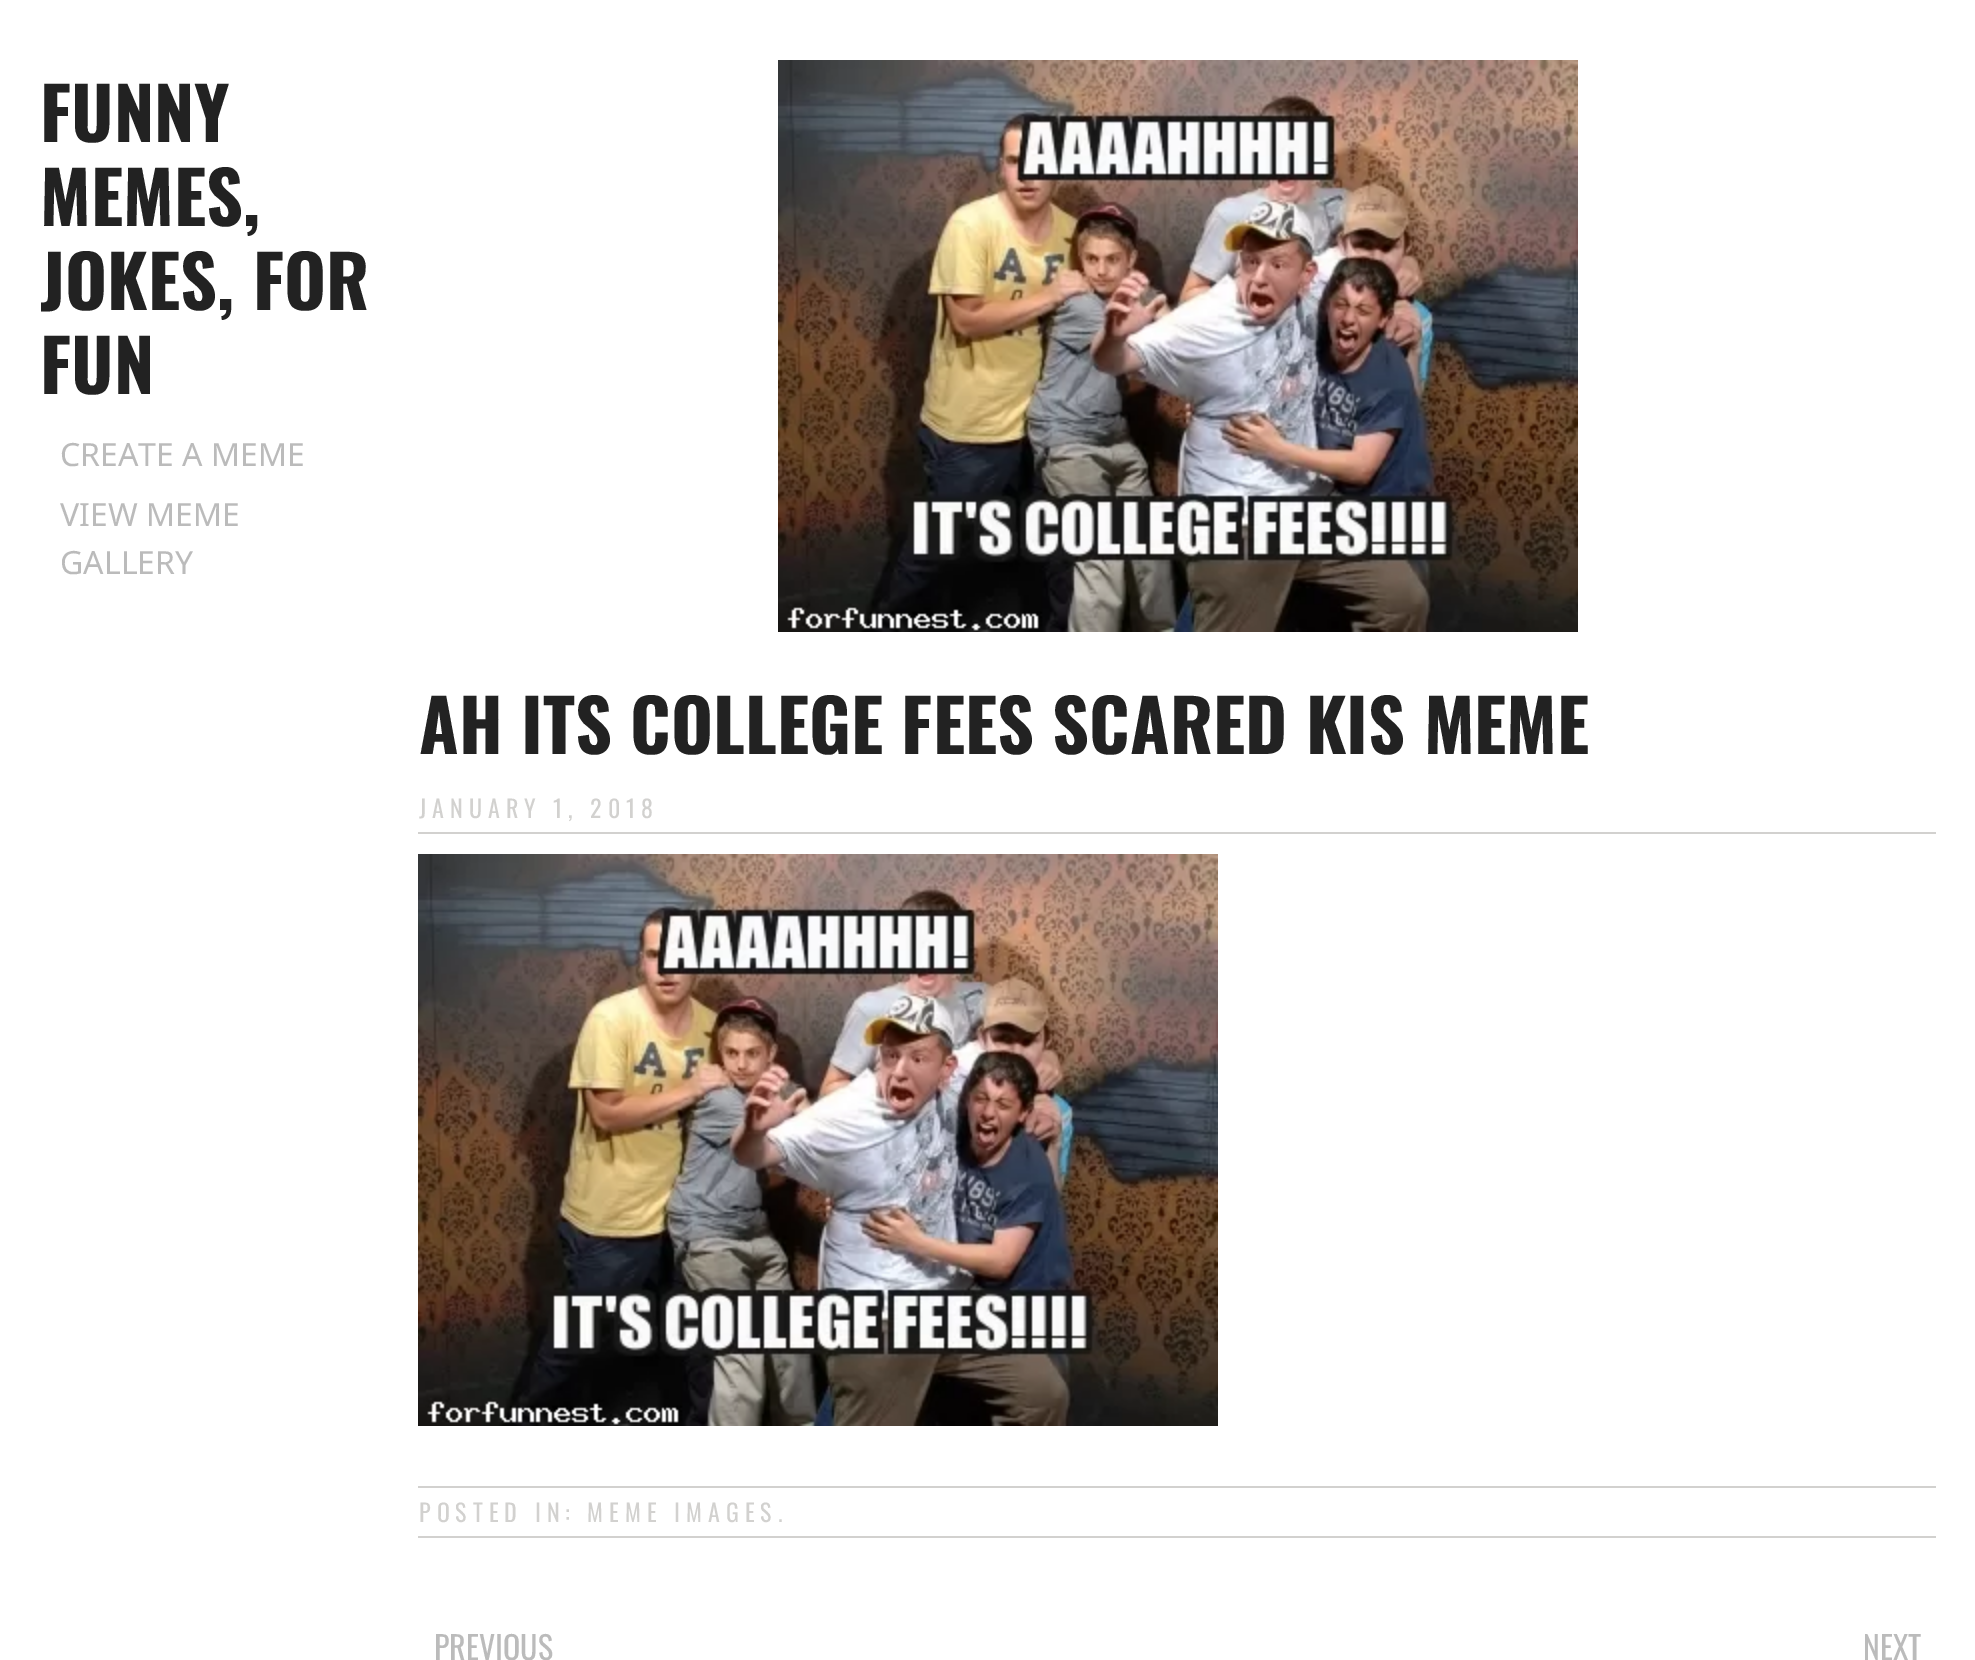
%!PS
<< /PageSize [1975 1660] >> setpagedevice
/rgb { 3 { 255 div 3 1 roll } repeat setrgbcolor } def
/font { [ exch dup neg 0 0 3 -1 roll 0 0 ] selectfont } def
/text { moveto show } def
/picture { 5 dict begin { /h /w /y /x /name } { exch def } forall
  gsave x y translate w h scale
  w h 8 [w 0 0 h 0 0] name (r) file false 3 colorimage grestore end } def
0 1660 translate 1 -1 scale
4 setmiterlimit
255 255 255 rgb
0 0 1975 1660 rectfill
(img_01.rgb) 778 60 800 572 picture
210 209 207 rgb
418 832 1518 2 rectfill
(img_01.rgb) 418 854 800 572 picture
418 1486 1518 2 rectfill
418 1536 1518 2 rectfill
/Oswald-Bold 72 font
34 34 34 rgb
(FUNNY) 40 142 text
(MEMES,) 40 226 text
(JOKES, FOR) 40 310 text
(FUN) 40 394 text
/NotoSans-Regular 32 font
187 187 187 rgb
(CREATE A MEME) 60 466 text
(VIEW MEME) 60 526 text
(GALLERY) 60 574 text
/Oswald-Bold 72 font
34 34 34 rgb
(AH ITS COLLEGE FEES SCARED KIS MEME) 419 754 text
/Oswald-Regular 24 font
210 209 207 rgb
419 818 moveto 6 0 (JANUARY 1, 2018) ashow
419 1522 moveto 6 0 (POSTED IN: MEME IMAGES.) ashow
/Oswald-Regular 32 font
187 187 187 rgb
(PREVIOUS) 434 1660 text
(NEXT) 1863 1660 text
showpage
